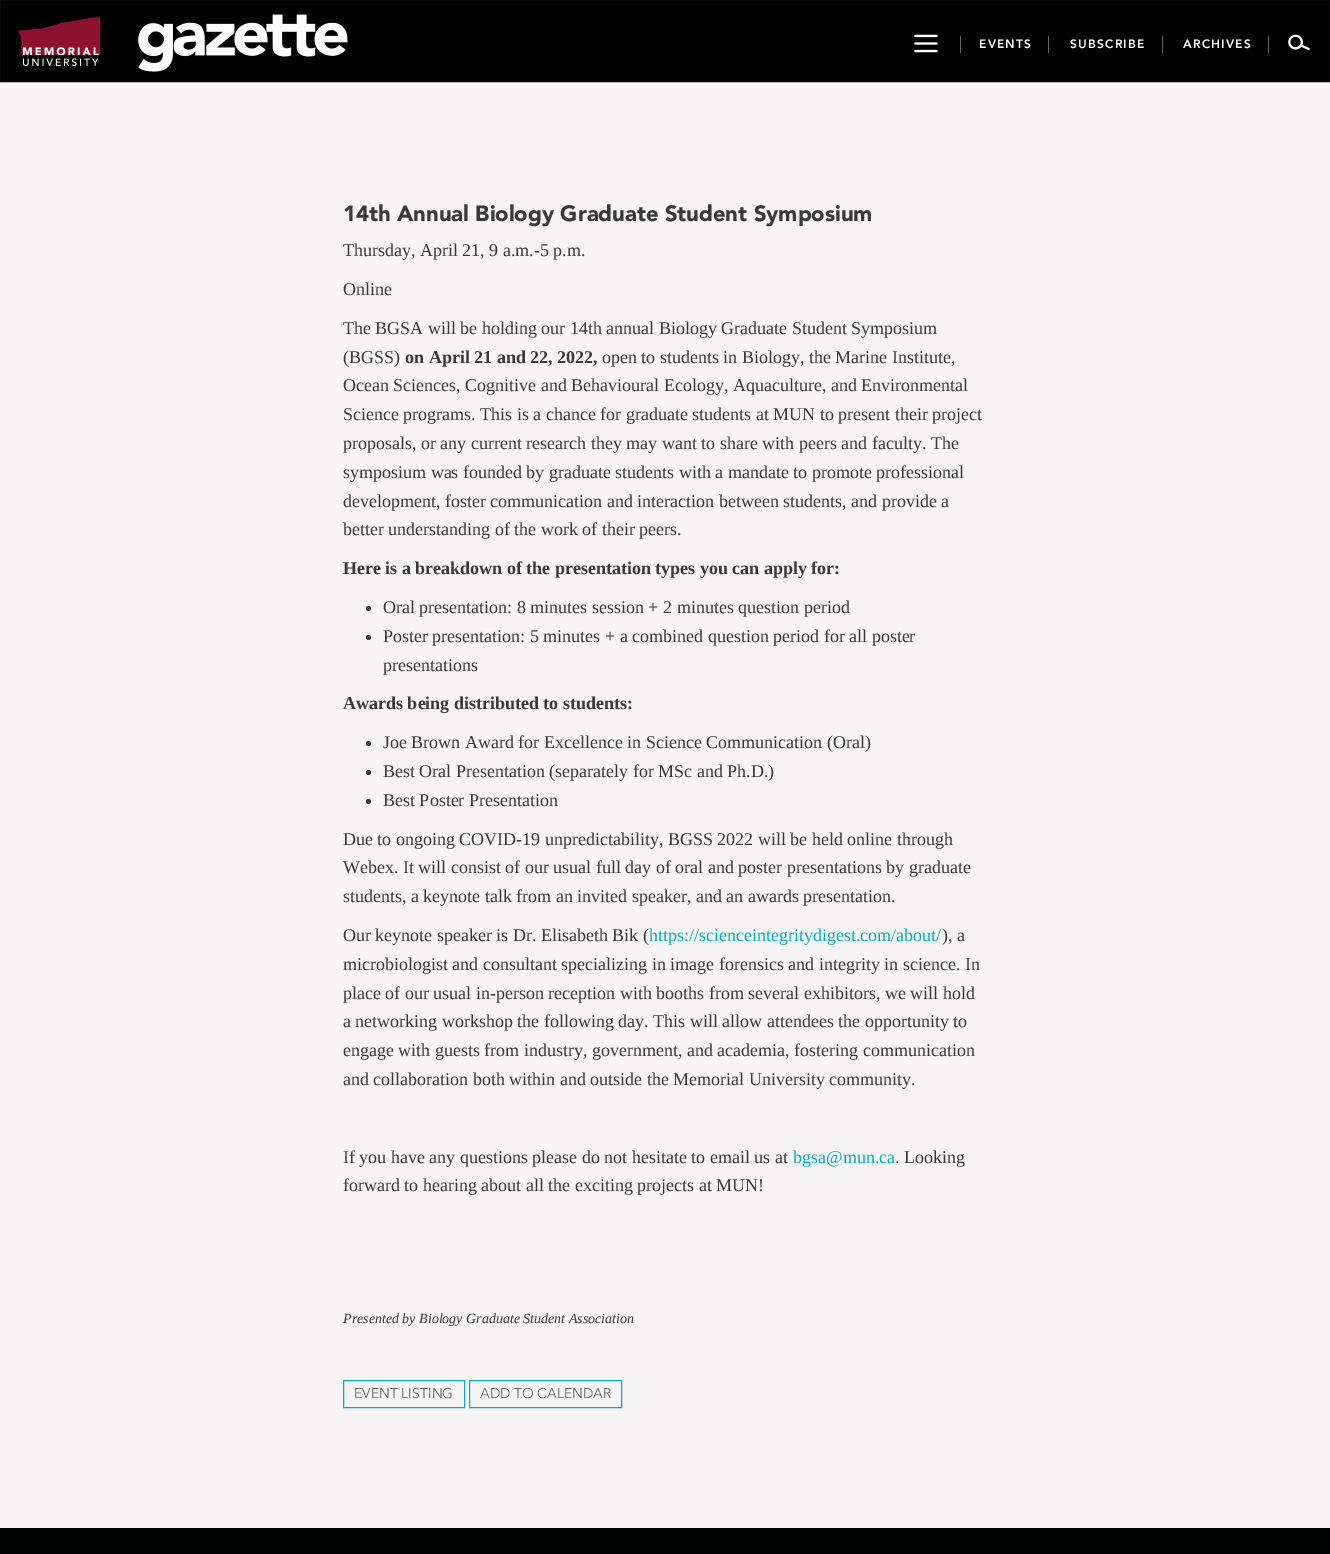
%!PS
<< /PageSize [1330 1554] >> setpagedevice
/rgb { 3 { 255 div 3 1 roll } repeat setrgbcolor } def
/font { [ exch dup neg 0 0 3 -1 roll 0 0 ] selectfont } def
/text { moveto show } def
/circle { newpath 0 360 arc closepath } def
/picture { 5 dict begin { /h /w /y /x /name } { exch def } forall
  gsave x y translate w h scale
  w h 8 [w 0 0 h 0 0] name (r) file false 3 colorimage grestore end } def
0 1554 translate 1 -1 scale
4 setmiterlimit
246 244 244 rgb
0 0 1330 1554 rectfill
8 8 8 rgb
0.5 0.5 1329 81 rectstroke
2 2 2 rgb
1 1 1328 80 rectfill
(img_01.rgb) 18 17 83 49 picture
(img_02.rgb) 138 14 210 58 picture
(img_03.rgb) 914 34 24 19 picture
100 101 105 rgb
1048 36 1 17 rectfill
960 36 1 17 rectfill
1162 36 1 17 rectfill
1268 36 1 17 rectfill
(img_04.rgb) 1288 34 22 17 picture
57 57 57 rgb
368.5 608.5 2.5 circle fill
368.5 637.5 2.5 circle fill
368.5 743.5 2.5 circle fill
368.5 772.5 2.5 circle fill
368.5 801.5 2.5 circle fill
3 171 196 rgb
343.5 1380.5 121 27 rectstroke
469.5 1380.5 152 27 rectstroke
2 3 3 rgb
0 1528 1330 26 rectfill
/Avenir-Black 12 font
254 254 254 rgb
979 48 moveto 1.25 0 (EVENTS) ashow
1070 48 moveto 1.25 0 (SUBSCRIBE) ashow
1183 48 moveto 1.25 0 (ARCHIVES) ashow
/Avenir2-Black 22 font
57 57 57 rgb
(14th Annual Biology Graduate Student Symposium) 343 221 text
/LiberationSerif-Regular 18 font
(Thursday, April 21, 9 a.m.-5 p.m.) 343 256 text
(Online) 343 295 text
(The BGSA will be holding our 14th annual Biology Graduate Student Symposium) 343 334 text
(\(BGSS\)) 343 363 text
/LiberationSerif-Bold 18 font
(on April 21 and 22, 2022,) 405 363 text
/LiberationSerif-Regular 18 font
(open to students in Biology, the Marine Institute,) 602 363 text
(Ocean Sciences, Cognitive and Behavioural Ecology, Aquaculture, and Environmental) 343 391 text
(Science programs. This is a chance for graduate students at MUN to present their project) 343 420 text
(proposals, or any current research they may want to share with peers and faculty. The) 343 449 text
(symposium was founded by graduate students with a mandate to promote professional) 343 478 text
(development, foster communication and interaction between students, and provide a) 343 507 text
(better understanding of the work of their peers.) 343 535 text
/LiberationSerif-Bold 18 font
(Here is a breakdown of the presentation types you can apply for:) 343 574 text
/LiberationSerif-Regular 18 font
(Oral presentation: 8 minutes session + 2 minutes question period) 383 613 text
(Poster presentation: 5 minutes + a combined question period for all poster) 383 642 text
(presentations) 383 671 text
/LiberationSerif-Bold 18 font
(Awards being distributed to students:) 343 709 text
/LiberationSerif-Regular 18 font
(Joe Brown Award for Excellence in Science Communication \(Oral\)) 383 748 text
(Best Oral Presentation \(separately for MSc and Ph.D.\)) 383 777 text
(Best Poster Presentation) 383 806 text
(Due to ongoing COVID-19 unpredictability, BGSS 2022 will be held online through) 343 845 text
(Webex. It will consist of our usual full day of oral and poster presentations by graduate) 343 873 text
(students, a keynote talk from an invited speaker, and an awards presentation.) 343 902 text
(Our keynote speaker is Dr. Elisabeth Bik \() 343 941 text
0 174 199 rgb
(https://scienceintegritydigest.com/about/) 649 941 text
57 57 57 rgb
(\), a) 942 941 text
(microbiologist and consultant specializing in image forensics and integrity in science. In) 343 970 text
(place of our usual in-person reception with booths from several exhibitors, we will hold) 343 999 text
(a networking workshop the following day. This will allow attendees the opportunity to) 343 1027 text
(engage with guests from industry, government, and academia, fostering communication) 343 1056 text
(and collaboration both within and outside the Memorial University community.) 343 1085 text
(If you have any questions please do not hesitate to email us at) 343 1163 text
0 174 199 rgb
(bgsa@mun.ca) 793 1163 text
57 57 57 rgb
(. Looking) 895 1163 text
(forward to hearing about all the exciting projects at MUN!) 343 1191 text
/LiberationSerif-Italic 14 font
(Presented by Biology Graduate Student Association) 343 1323 text
/Avenir-Light 14 font
96 97 97 rgb
(EVENT LISTING) 354 1398 text
(ADD TO CALENDAR) 480 1398 text
showpage
